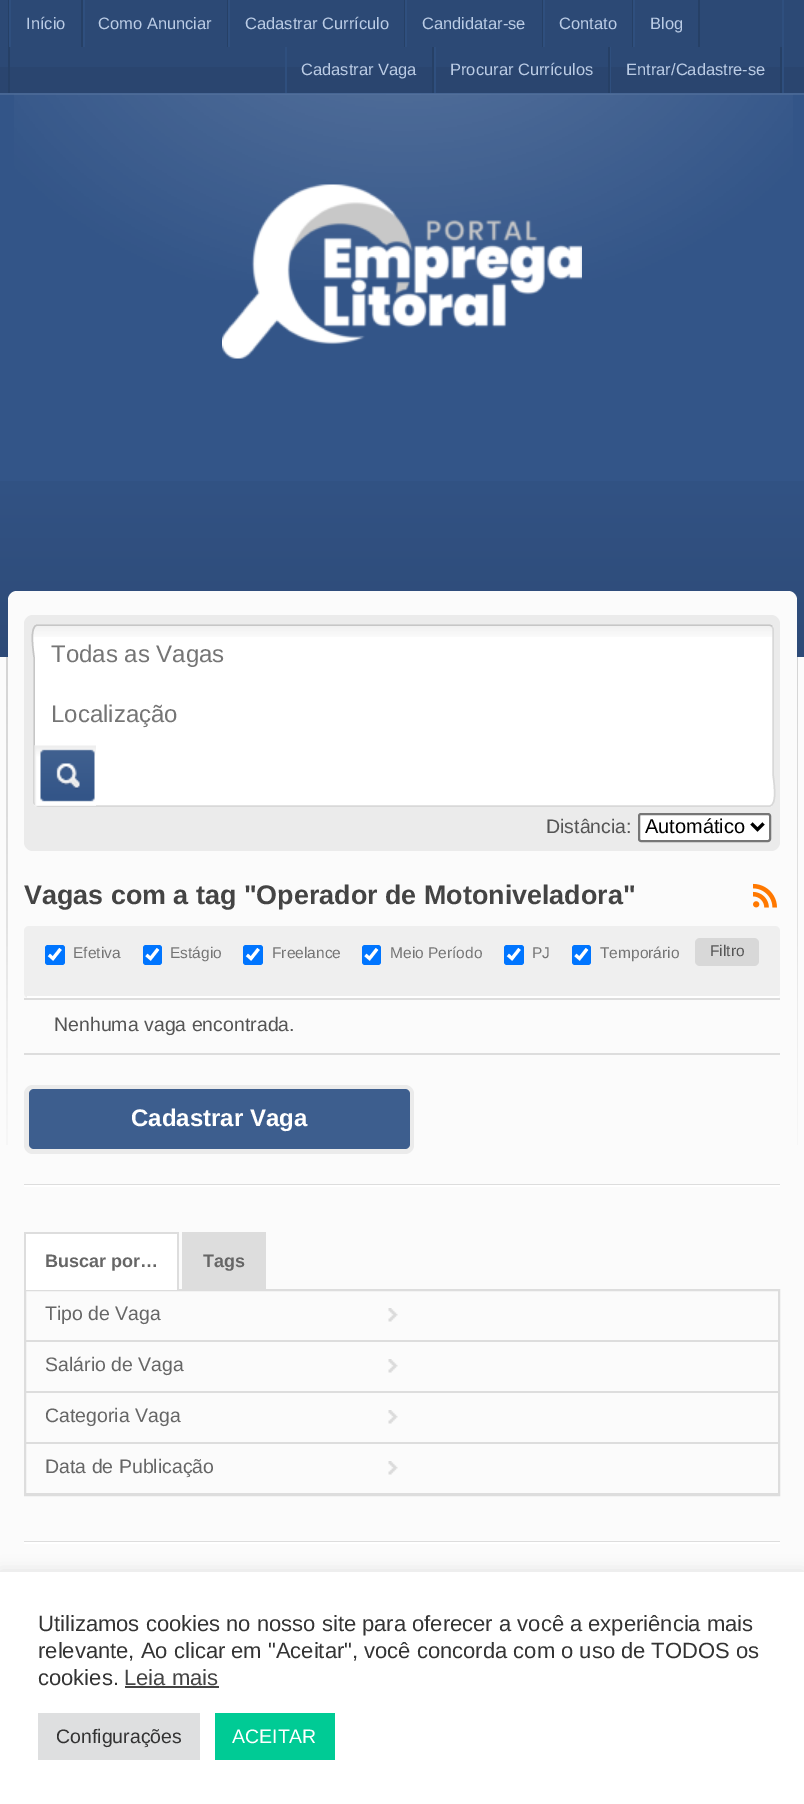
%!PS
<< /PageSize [804 1804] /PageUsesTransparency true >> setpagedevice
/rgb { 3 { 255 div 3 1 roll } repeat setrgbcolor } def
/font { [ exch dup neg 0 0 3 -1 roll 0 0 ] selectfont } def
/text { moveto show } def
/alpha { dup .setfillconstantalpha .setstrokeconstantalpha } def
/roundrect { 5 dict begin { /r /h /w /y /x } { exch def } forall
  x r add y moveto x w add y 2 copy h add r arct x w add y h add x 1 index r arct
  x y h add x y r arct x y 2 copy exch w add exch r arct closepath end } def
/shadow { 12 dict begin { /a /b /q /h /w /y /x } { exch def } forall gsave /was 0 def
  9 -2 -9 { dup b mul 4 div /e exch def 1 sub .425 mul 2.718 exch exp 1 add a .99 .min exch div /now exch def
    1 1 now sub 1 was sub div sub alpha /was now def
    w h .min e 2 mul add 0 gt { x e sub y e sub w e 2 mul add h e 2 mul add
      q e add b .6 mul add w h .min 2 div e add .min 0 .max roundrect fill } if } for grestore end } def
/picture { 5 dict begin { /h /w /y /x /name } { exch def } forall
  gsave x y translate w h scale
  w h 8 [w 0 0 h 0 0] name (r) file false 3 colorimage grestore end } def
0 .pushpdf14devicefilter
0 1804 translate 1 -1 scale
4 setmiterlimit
251 251 251 rgb
0 0 804 1804 rectfill
44 73 117 rgb
0 0 804 67 rectfill
42 69 111 rgb
0 67 804 26 rectfill
47 79 126 rgb
782 0 2 93 rectfill
38 64 102 rgb
8 0 2 93 rectfill
81 0 2 47 rectfill
47 79 126 rgb
9 0 2 47 rectfill
38 64 102 rgb
227 0 1 47 rectfill
47 79 126 rgb
83 0 2 47 rectfill
38 64 102 rgb
404 0 1 47 rectfill
47 79 126 rgb
228 0 2 47 rectfill
38 64 102 rgb
542 0 1 47 rectfill
47 79 126 rgb
405 0 2 47 rectfill
38 64 102 rgb
632 0 1 47 rectfill
47 79 126 rgb
543 0 2 47 rectfill
38 64 102 rgb
698 0 2 47 rectfill
47 79 126 rgb
633 0 2 47 rectfill
38 64 102 rgb
432 47 2 46 rectfill
47 79 126 rgb
285 47 2 46 rectfill
38 64 102 rgb
608 47 2 46 rectfill
47 79 126 rgb
434 47 2 46 rectfill
38 64 102 rgb
780 47 2 46 rectfill
47 79 126 rgb
610 47 1 46 rectfill
51 85 136 rgb
0 95 804 386 rectfill
(img_01.rgb) 0 481 804 176 picture
71 102 148 rgb
0 93 804 2 rectfill
(img_02.rgb) 14 94 779 186 picture
(img_03.rgb) 222 184 360 175 picture
(img_04.rgb) 6 657 792 488 picture
251 251 251 rgb
8 591 789 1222 9 roundrect fill
235 235 235 rgb
24 615 756 236 9 roundrect fill
255 255 255 rgb
33 624 741 183 5 roundrect fill
(img_05.rgb) 33 625 741 12 picture
216 216 216 rgb
1.5 setlinewidth
772 626 moveto 1 2.5 rlineto 0 145 rlineto 0 3 5.5 32.5 -3.5 32.5 rcurveto -732 0 rlineto -2.5 -1 rlineto stroke
198 198 198 rgb
35 805 moveto -1 -2.5 rlineto 0 -145 rlineto 0 -3 -5.5 -32.5 3.5 -32.5 rcurveto 732 0 rlineto 2.5 1 rlineto stroke
239 239 239 rgb
35 805 61 1 rectfill
(img_06.rgb) 34 745 62 61 picture
255 255 255 rgb
639 814 131 27 2 roundrect gsave fill grestore
118 118 118 rgb
2 setlinewidth
stroke
0 0 0 rgb
3 setlinewidth
751.5 823.5 moveto 6 6 rlineto 6 -6 rlineto stroke
(img_07.rgb) 753 883 24 25 picture
239 239 239 rgb
24 926 756 72 5 roundrect fill
255 255 255 rgb
27 996 752 2 rectfill
0 117 255 rgb
45 945 20 20 3 roundrect fill
255 255 255 rgb
3.1 setlinewidth
49 955 moveto 4 3.5 rlineto 7.5 -9.5 rlineto stroke
0 117 255 rgb
143 945 19 20 3 roundrect fill
255 255 255 rgb
146.5 955 moveto 4 3.5 rlineto 7.5 -9.5 rlineto stroke
0 117 255 rgb
243 945 20 20 3 roundrect fill
255 255 255 rgb
247 955 moveto 4 3.5 rlineto 7.5 -9.5 rlineto stroke
0 117 255 rgb
362 945 19 20 3 roundrect fill
255 255 255 rgb
365.5 955 moveto 4 3.5 rlineto 7.5 -9.5 rlineto stroke
0 117 255 rgb
504 945 20 20 3 roundrect fill
255 255 255 rgb
508 955 moveto 4 3.5 rlineto 7.5 -9.5 rlineto stroke
0 117 255 rgb
572 945 19 20 3 roundrect fill
255 255 255 rgb
575.5 955 moveto 4 3.5 rlineto 7.5 -9.5 rlineto stroke
216 216 216 rgb
695 938 64 28 5 roundrect fill
221 221 221 rgb
24 998 756 2 rectfill
24 1053 756 2 rectfill
24 1184 756 1 rectfill
235 235 235 rgb
24 1085 390 69 9 roundrect fill
61 94 142 rgb
29 1089 381 60 5 roundrect fill
255 255 255 rgb
24 1185 756 2 rectfill
221 221 221 rgb
24 1541 756 1 rectfill
2 setlinewidth
25 1290 754 205 rectstroke
255 255 255 rgb
26 1234 151 56 rectfill
221 221 221 rgb
24 1232 155 2 rectfill
177 1232 2 58 rectfill
24 1232 2 58 rectfill
182 1232 84 57 rectfill
(img_08.rgb) 388 1308 10 14 picture
26 1340 753 2 rectfill
(img_08.rgb) 388 1359 10 14 picture
26 1391 753 2 rectfill
(img_08.rgb) 388 1410 10 14 picture
26 1442 753 2 rectfill
(img_08.rgb) 388 1461 10 14 picture
26 1493 753 1 rectfill
255 255 255 rgb
24 1542 756 2 rectfill
172 171 171 rgb
0 1571 804 232 0 7.5 0.3 shadow
255 255 255 rgb
0 1572 804 232 rectfill
68 68 68 rgb
125 1686 94 2 rectfill
222 223 224 rgb
38 1713 162 47 rectfill
0 203 149 rgb
215 1713 120 47 rectfill
/LiberationSans-Regular 16.5 font
187 204 229 rgb
(Início) 26 29 text
(Como Anunciar) 98 29 text
(Cadastrar Currículo) 245 29 text
(Candidatar-se) 422 29 text
(Contato) 559 29 text
(Blog) 650 29 text
(Cadastrar Vaga) 301 75 text
(Procurar Currículos) 450 75 text
(Entrar/Cadastre-se) 626 75 text
/LiberationSans-Regular 24 font
117 117 117 rgb
(Todas as Vagas) 51 662 text
(Localização) 51 722 text
/LiberationSans-Regular 19.5 font
85 85 85 rgb
(Distância:) 546 833 text
/LiberationSans-Regular 20 font
0 0 0 rgb
(Automático) 645 833 text
/LiberationSans-Bold 26.9 font
68 68 68 rgb
(Vagas com a tag "Operador de Motoniveladora") 24 904 text
/LiberationSans-Regular 15.5 font
117 117 117 rgb
(Efetiva) 73 958 text
(Estágio) 170 958 text
(Freelance) 272 958 text
(Meio Período) 390 958 text
(PJ) 532 958 text
(Temporário) 600 958 text
85 85 85 rgb
(Filtro) 710 956 text
/LiberationSans-Regular 19.5 font
(Nenhuma vaga encontrada.) 54 1031 text
/LiberationSans-Bold 24 font
255 255 255 rgb
(Cadastrar Vaga) 131 1126 text
/LiberationSans-Bold 18 font
102 102 102 rgb
(Buscar por…) 45 1267 text
(Tags) 203 1267 text
/LiberationSans-Regular 19.5 font
(Tipo de Vaga) 45 1320 text
(Salário de Vaga) 45 1371 text
(Categoria Vaga) 45 1422 text
(Data de Publicação) 45 1473 text
/LiberationSans-Regular 22 font
51 51 51 rgb
(Utilizamos cookies no nosso site para oferecer a você a experiência mais) 38 1631 text
(relevante, Ao clicar em "Aceitar", você concorda com o uso de TODOS os) 38 1658 text
(cookies.) 38 1685 text
68 68 68 rgb
(Leia mais) 124 1685 text
/LiberationSans-Regular 19.5 font
51 51 51 rgb
(Configurações) 56 1743 text
255 255 255 rgb
(ACEITAR) 232 1743 text
.poppdf14devicefilter showpage
